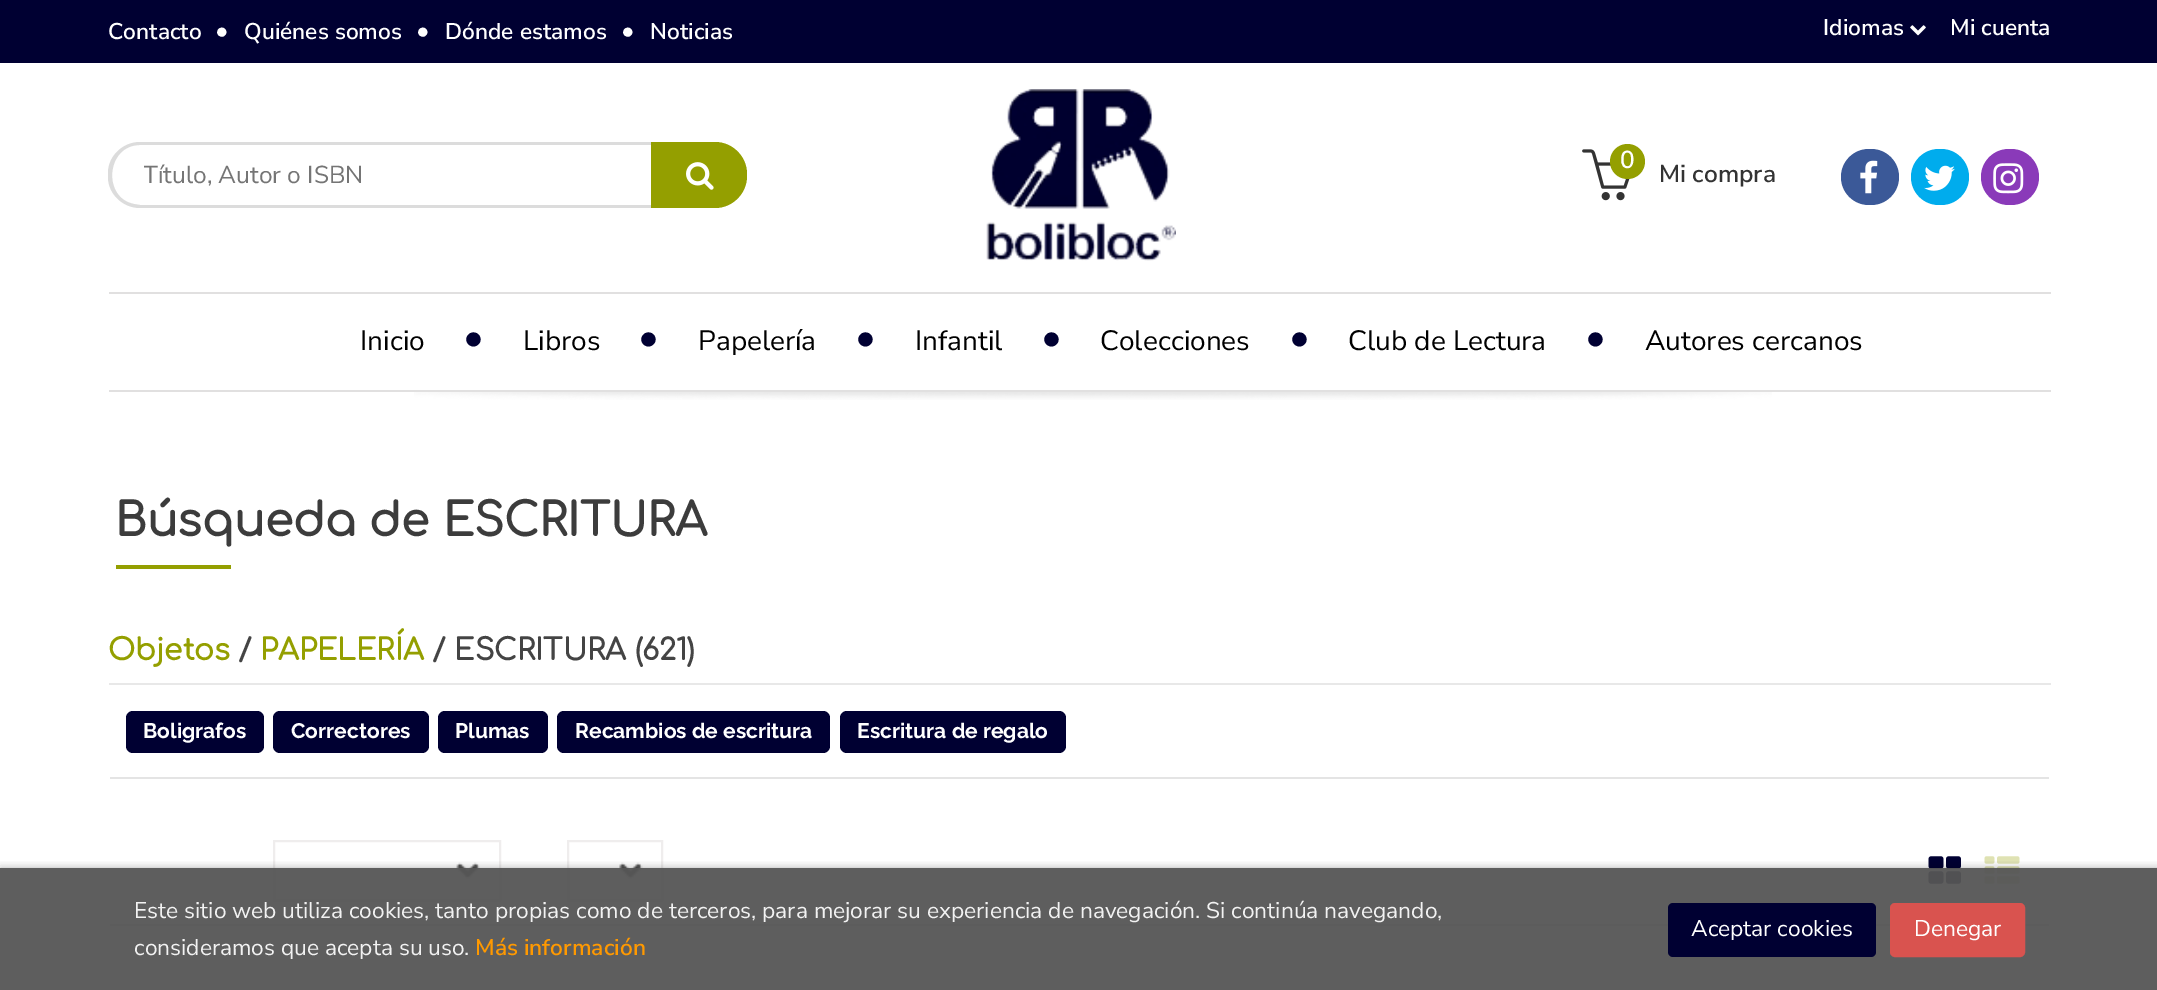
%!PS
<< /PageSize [2157 990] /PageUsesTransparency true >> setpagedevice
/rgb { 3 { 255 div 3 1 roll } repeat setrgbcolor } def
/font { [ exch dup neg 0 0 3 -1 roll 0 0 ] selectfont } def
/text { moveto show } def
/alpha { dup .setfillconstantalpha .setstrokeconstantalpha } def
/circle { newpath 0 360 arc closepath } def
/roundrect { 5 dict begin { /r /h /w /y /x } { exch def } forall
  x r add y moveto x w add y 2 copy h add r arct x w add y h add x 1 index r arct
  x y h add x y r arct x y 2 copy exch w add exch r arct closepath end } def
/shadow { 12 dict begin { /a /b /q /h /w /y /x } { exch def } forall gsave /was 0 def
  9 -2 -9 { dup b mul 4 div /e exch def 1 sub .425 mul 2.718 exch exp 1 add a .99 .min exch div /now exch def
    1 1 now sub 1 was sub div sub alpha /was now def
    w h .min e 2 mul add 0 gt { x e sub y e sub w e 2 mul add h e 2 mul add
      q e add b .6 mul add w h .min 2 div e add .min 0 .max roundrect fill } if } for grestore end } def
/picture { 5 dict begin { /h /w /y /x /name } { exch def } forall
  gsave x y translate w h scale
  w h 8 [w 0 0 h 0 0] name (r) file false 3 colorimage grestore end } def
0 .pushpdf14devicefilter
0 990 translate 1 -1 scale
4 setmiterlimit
255 255 255 rgb
0 0 2157 990 rectfill
0 0 50 rgb
0 0 2157 63 rectfill
(img_01.rgb) 1910 25 16 11 picture
220 220 220 rgb
140 142 moveto 511 0 rlineto 0 66 rlineto -511 0 rlineto -17 0 -32 -14 -32 -31 rcurveto 0 -4 rlineto 0 -17 15 -31 32 -31 rcurveto closepath 140 145 moveto 511 0 rlineto 0 60 rlineto -511 0 rlineto -6 -1 rlineto -32 -6 -28 -59 6 -59 rcurveto closepath eofill
148 159 0 rgb
651 142 moveto 64 0 rlineto 17.5 0 32 14.5 32 32 rcurveto 0 2 rlineto 0 17.5 -14.5 32 -32 32 rcurveto -64 0 rlineto closepath fill
(img_02.rgb) 686 162 28 28 picture
(img_03.rgb) 986 89 190 172 picture
(img_04.rgb) 1582 149 48 52 picture
1627.5 161.5 17.5 circle fill
59 89 152 rgb
1841 149 58 56 28 roundrect fill
(img_05.rgb) 1860 160 18 34 picture
0 172 237 rgb
1911 149 58 56 28 roundrect fill
(img_06.rgb) 1924 165 31 26 picture
138 58 185 rgb
1981 149 58 56 28 roundrect fill
(img_07.rgb) 1993 163 31 31 picture
(img_08.rgb) 414 392 1358 8 picture
225 224 224 rgb
109 292 1942 2 rectfill
109 390 1942 2 rectfill
148 159 0 rgb
116 565 115 4 rectfill
232 232 232 rgb
109 683 1942 2 rectfill
228 228 228 rgb
110 777 1939 2 rectfill
0 0 50 rgb
126 711 138 42 7 roundrect fill
273 711 156 42 7 roundrect fill
438 711 110 42 7 roundrect fill
557 711 273 42 7 roundrect fill
840 711 226 42 7 roundrect fill
228 228 228 rgb
110 924 1939 2 rectfill
(img_09.rgb) 456 862 24 17 picture
239 237 237 rgb
2 setlinewidth
274 841 226 59 rectstroke
(img_10.rgb) 619 862 24 17 picture
568 841 94 59 rectstroke
(img_11.rgb) 1928 856 33 28 picture
(img_12.rgb) 1984 856 36 28 picture
gsave
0 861 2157 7 rectclip
0 0 0 rgb
0 868 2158 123 0 4.5 0.3 shadow
grestore
0.95 alpha
85 85 85 rgb
0 868 2157 122 rectfill
1 alpha
0 0 50 rgb
1668 903 208 54 5 roundrect fill
217 83 79 rgb
1891 904 133 52 4 roundrect gsave fill grestore
stroke
/NunitoSans-SemiBold 22.75 font
255 255 255 rgb
(Contacto) 108 39 text
/NunitoSans-SemiBold 26 font
(•) 215 39 text
/NunitoSans-SemiBold 22.75 font
(Quiénes somos) 244 39 text
/NunitoSans-SemiBold 26 font
(•) 416 39 text
/NunitoSans-SemiBold 22.75 font
(Dónde estamos) 445 39 text
/NunitoSans-SemiBold 26 font
(•) 621 39 text
/NunitoSans-SemiBold 22.75 font
(Noticias) 650 39 text
(Idiomas) 1823 35 text
(Mi cuenta) 1950 35 text
gsave
144 159 507 34 rectclip
/NunitoSans-Regular 24.5 font
117 117 117 rgb
(Título, Autor o ISBN) 143 183 text
grestore
/NunitoSans-SemiBold 24.5 font
(0) 1620 168 text
51 51 51 rgb
(Mi compra) 1659 182 text
/NunitoSans-Regular 28 font
0 0 0 rgb
(Inicio) 360 350 text
/NunitoSans-Regular 40 font
0 0 50 rgb
(•) 463 350 text
/NunitoSans-Regular 28 font
0 0 0 rgb
(Libros) 523 350 text
/NunitoSans-Regular 40 font
0 0 50 rgb
(•) 638 350 text
/NunitoSans-Regular 28 font
0 0 0 rgb
(Papelería) 698 350 text
/NunitoSans-Regular 40 font
0 0 50 rgb
(•) 855 350 text
/NunitoSans-Regular 28 font
0 0 0 rgb
(Infantil) 915 350 text
/NunitoSans-Regular 40 font
0 0 50 rgb
(•) 1041 350 text
/NunitoSans-Regular 28 font
0 0 0 rgb
(Colecciones) 1100 350 text
/NunitoSans-Regular 40 font
0 0 50 rgb
(•) 1289 350 text
/NunitoSans-Regular 28 font
0 0 0 rgb
(Club de Lectura) 1348 350 text
/NunitoSans-Regular 40 font
0 0 50 rgb
(•) 1585 350 text
/NunitoSans-Regular 28 font
0 0 0 rgb
(Autores cercanos) 1645 350 text
/Comfortaa-Bold 45.5 font
60 60 60 rgb
(Búsqueda de ESCRITURA) 115 536 text
/Comfortaa-Bold 29.5 font
148 159 0 rgb
(Objetos) 108 660 text
68 68 68 rgb
(/) 238 660 text
148 159 0 rgb
(PAPELERÍA) 260 660 text
68 68 68 rgb
(/ ESCRITURA \(621\)) 432 660 text
/Raleway-Bold 21 font
255 255 255 rgb
(Boligrafos) 143 738 text
(Correctores) 291 738 text
(Plumas) 455 738 text
(Recambios de escritura) 575 738 text
(Escritura de regalo) 857 738 text
/NunitoSans-Regular 22.75 font
242 242 242 rgb
(Este sitio web utiliza cookies, tanto propias como de terceros, para mejorar su experiencia de navegación. Si continúa navegando,) 134 918 text
(consideramos que acepta su uso.) 134 955 text
/NunitoSans-SemiBold 22.75 font
255 153 0 rgb
(Más información) 475 955 text
/NunitoSans-Regular 22.75 font
255 255 255 rgb
(Aceptar cookies) 1691 936 text
(Denegar) 1914 936 text
.poppdf14devicefilter showpage
